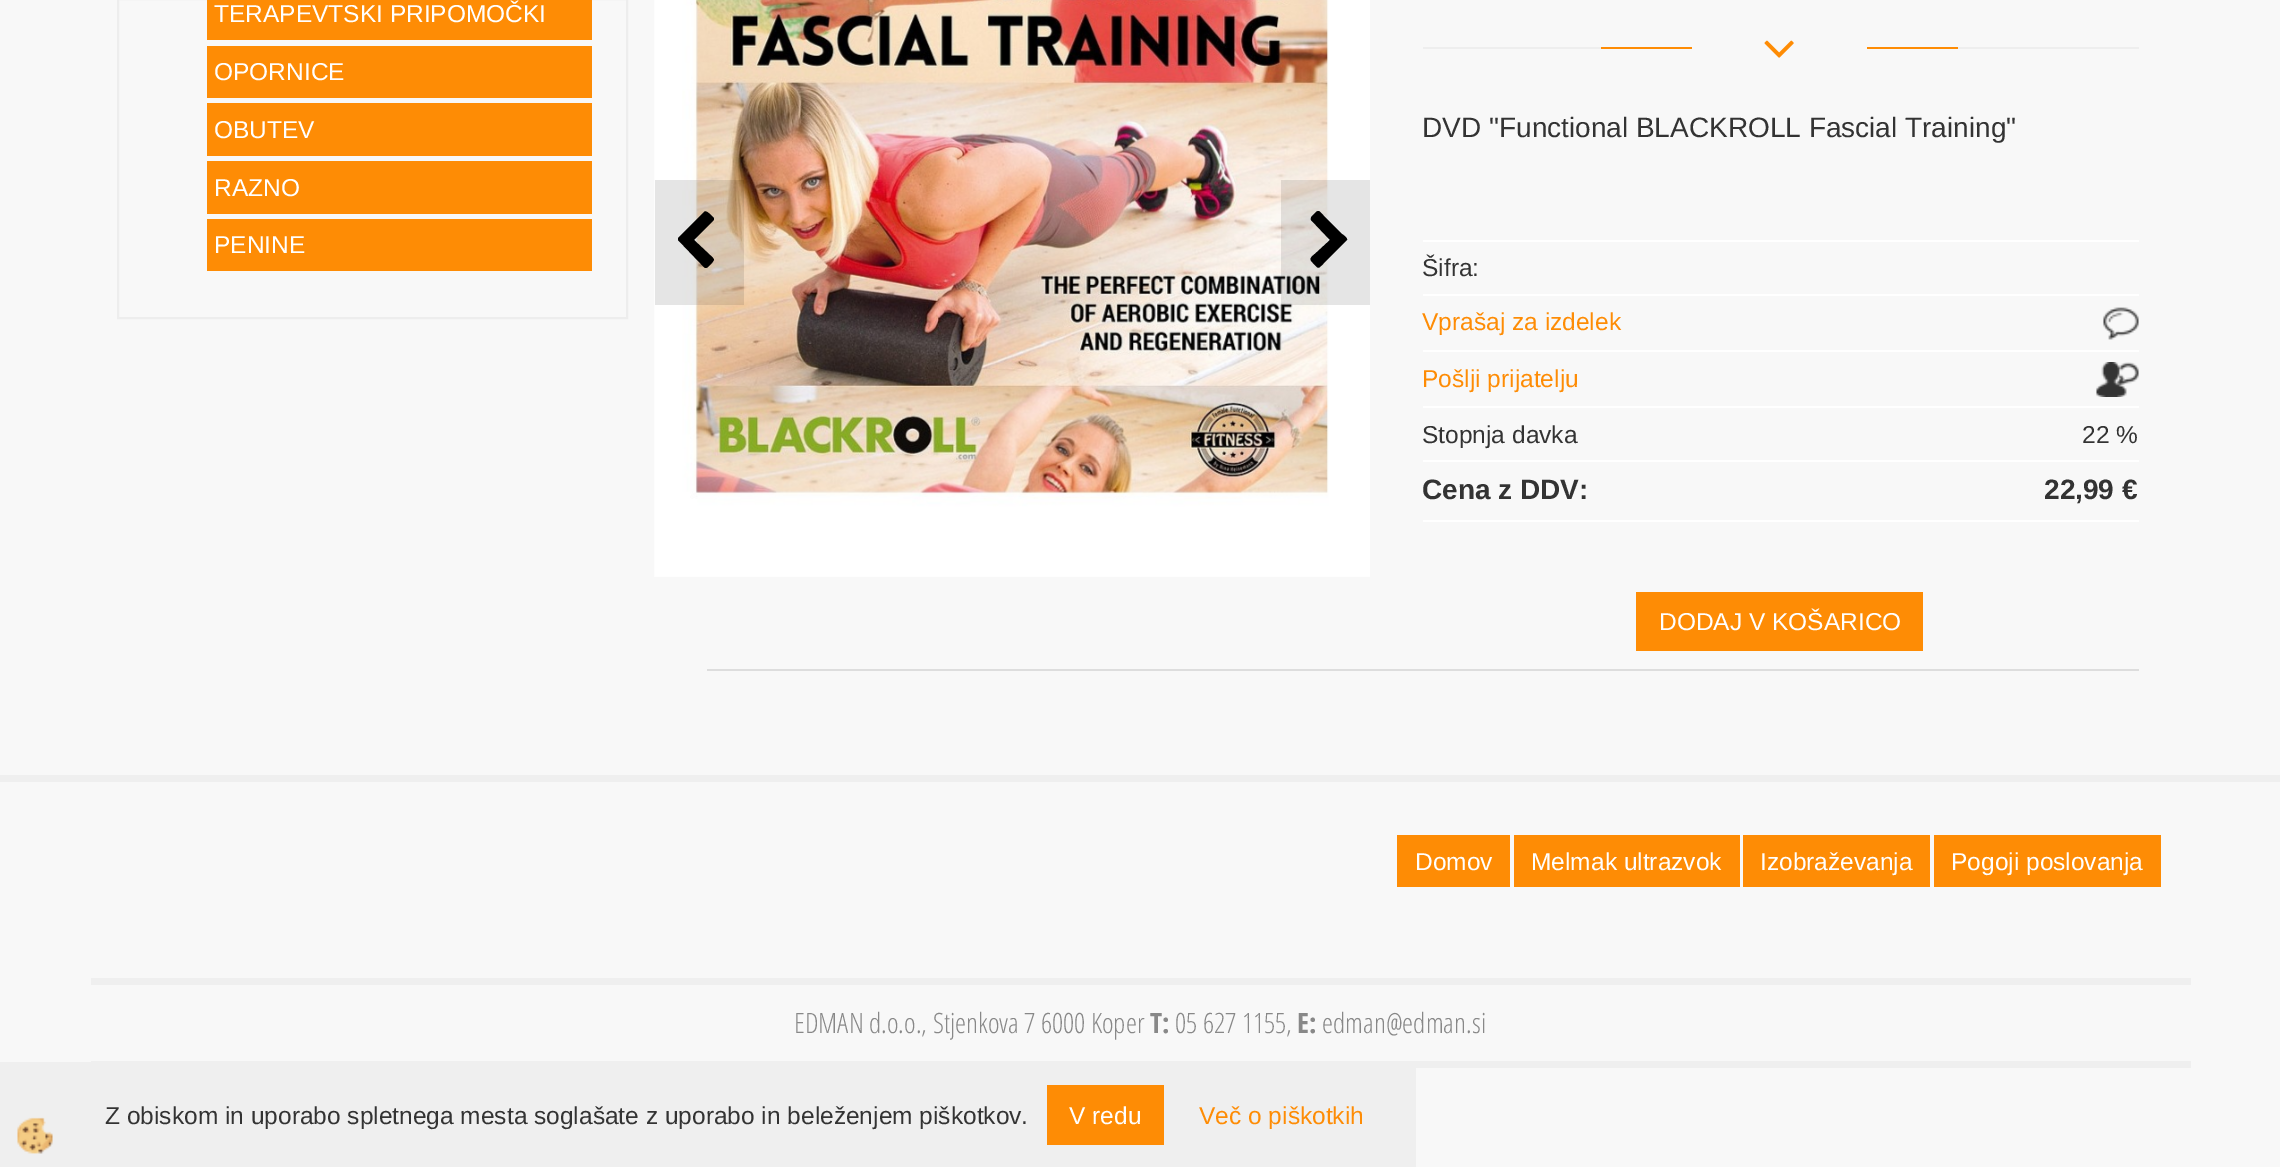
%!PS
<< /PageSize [2280 1167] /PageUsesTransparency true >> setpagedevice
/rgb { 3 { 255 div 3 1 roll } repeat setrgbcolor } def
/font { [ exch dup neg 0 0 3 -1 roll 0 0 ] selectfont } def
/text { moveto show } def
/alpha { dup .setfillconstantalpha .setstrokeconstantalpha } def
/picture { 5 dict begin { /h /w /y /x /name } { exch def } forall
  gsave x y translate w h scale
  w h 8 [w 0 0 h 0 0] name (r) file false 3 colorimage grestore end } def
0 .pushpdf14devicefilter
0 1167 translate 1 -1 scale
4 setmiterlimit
248 248 248 rgb
0 0 2280 1167 rectfill
237 237 237 rgb
2 setlinewidth
118 -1 509 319 rectstroke
254 140 5 rgb
207 0 385 40 rectfill
207 46 385 52 rectfill
207 103 385 53 rectfill
207 161 385 53 rectfill
207 219 385 52 rectfill
(img_01.rgb) 654 0 716 577 picture
0.1 alpha
0 0 0 rgb
655 180 89 125 rectfill
1 alpha
713 221 moveto -19 19 rlineto 16 15 rlineto 5 5 5 4 1 9 rcurveto -6 6 -5 5 -11 -1 rcurveto -22 -23 rlineto 0 -2 rlineto 26 -26 rlineto 2 -2 4 1 6 2 rcurveto 4 4 rlineto 0 1 0 2 -1 3 rcurveto closepath fill
0.1 alpha
1281 180 89 125 rectfill
1 alpha
1346 241 moveto -22 22 rlineto -7 7 -5 6 -12 -1 rcurveto -4 -4 1 -6 5 -10 rcurveto 13 -12 rlineto -19 -20 rlineto -1 -2 1 -4 2 -5 rcurveto 6 -6 5 -5 11 1 rcurveto 18 18 rlineto 0 0 6 4 5 6 rcurveto closepath fill
238 238 238 rgb
1423 47 716 2 rectfill
254 140 5 rgb
1601 47 357 2 rectfill
248 248 248 rgb
1692 47 175 2 rectfill
(img_02.rgb) 1764 40 30 18 picture
255 255 255 rgb
1423 240 716 2 rectfill
1423 294 716 2 rectfill
1423 350 716 2 rectfill
(img_03.rgb) 2103 307 36 33 picture
1423 406 716 2 rectfill
(img_04.rgb) 2096 362 43 35 picture
1423 460 716 2 rectfill
1423 520 716 2 rectfill
254 140 5 rgb
1636 592 287 59 rectfill
221 221 221 rgb
707 669 1432 2 rectfill
239 239 239 rgb
0 775 2280 7 rectfill
254 140 5 rgb
1397 835 113 52 rectfill
1514 835 226 52 rectfill
1743 835 187 52 rectfill
1934 835 227 52 rectfill
239 239 239 rgb
91 978 2100 7 rectfill
91 1061 2100 7 rectfill
0 1062 1416 105 rectfill
(img_05.rgb) 17 1117 36 37 picture
254 140 5 rgb
1047 1085 117 60 rectfill
/LiberationSans-Regular 24.5 font
255 255 255 rgb
(TERAPEVTSKI PRIPOMOČKI) 214 22 text
(OPORNICE) 214 80 text
(OBUTEV) 214 138 text
(RAZNO) 214 196 text
(PENINE) 214 253 text
/LiberationSans-Regular 28 font
51 51 51 rgb
(DVD "Functional BLACKROLL Fascial Training") 1422 137 text
/LiberationSans-Regular 24.5 font
(Šifra:) 1422 276 text
254 140 5 rgb
(Vprašaj za izdelek) 1422 330 text
(Pošlji prijatelju) 1422 387 text
51 51 51 rgb
(Stopnja davka) 1422 443 text
(22 %) 2082 443 text
/LiberationSans-Bold 28 font
(Cena z DDV:) 1422 499 text
(22,99 €) 2044 499 text
/LiberationSans-Regular 24.5 font
255 255 255 rgb
(DODAJ V KOŠARICO) 1659 630 text
(Domov) 1415 870 text
(Melmak ultrazvok) 1531 870 text
(Izobraževanja) 1760 870 text
(Pogoji poslovanja) 1951 870 text
/OpenSansCondensed-Light 28 font
136 136 136 rgb
(EDMAN d.o.o., Stjenkova 7 6000 Koper) 794 1033 text
/OpenSansCondensed-Bold 28 font
(T:) 1150 1033 text
/OpenSansCondensed-Light 28 font
(05 627 1155,) 1175 1033 text
/OpenSansCondensed-Bold 28 font
(E:) 1297 1033 text
/OpenSansCondensed-Light 28 font
(edman@edman.si) 1322 1033 text
/LiberationSans-Regular 24.5 font
51 51 51 rgb
(Z obiskom in uporabo spletnega mesta soglašate z uporabo in beleženjem piškotkov.) 105 1124 text
255 255 255 rgb
(V redu) 1069 1124 text
254 140 5 rgb
(Več o piškotkih) 1199 1124 text
.poppdf14devicefilter showpage
